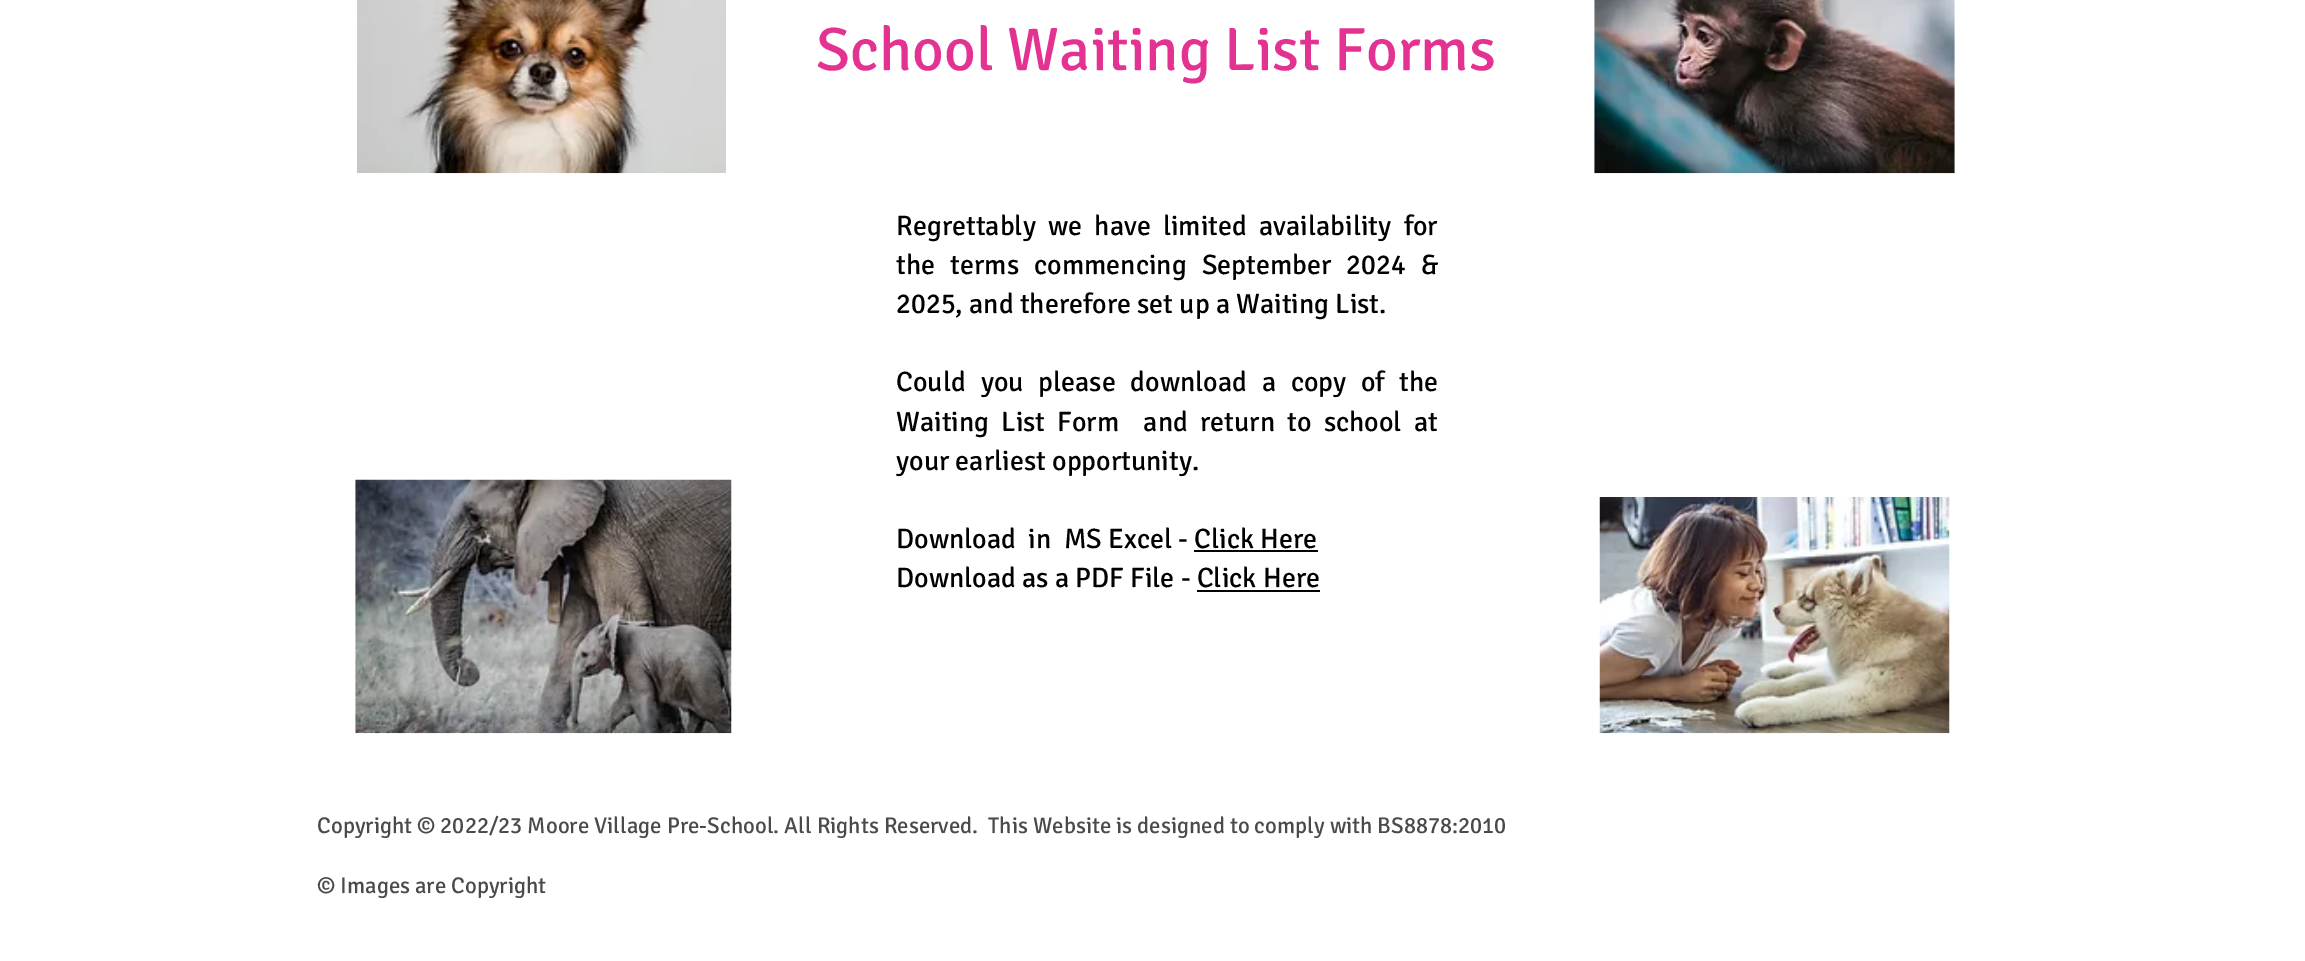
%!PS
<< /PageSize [2305 961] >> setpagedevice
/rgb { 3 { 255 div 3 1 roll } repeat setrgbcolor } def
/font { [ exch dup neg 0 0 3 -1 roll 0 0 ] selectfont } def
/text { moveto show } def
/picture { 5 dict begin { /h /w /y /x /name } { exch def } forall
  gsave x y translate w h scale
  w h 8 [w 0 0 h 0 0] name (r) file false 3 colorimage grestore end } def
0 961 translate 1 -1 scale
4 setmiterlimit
255 255 255 rgb
0 0 2305 961 rectfill
(img_01.rgb) 357 0 369 174 picture
(img_02.rgb) 1594 0 361 174 picture
(img_03.rgb) 355 479 377 255 picture
0 0 0 rgb
1194 550 124 2 rectfill
1197 590 123 2 rectfill
(img_04.rgb) 1599 497 351 237 picture
/Signika-Regular 61.25 font
228 50 146 rgb
(School Waiting List Forms) 816 70 text
/Signika-Regular 28 font
0 0 0 rgb
896 235 moveto 6 0 32 (Regrettably we have limited availability for) widthshow
896 274 moveto 9 0 32 (the terms commencing September 2024 &) widthshow
(2025, and therefore set up a Waiting List.) 896 313 text
896 391 moveto 8.5 0 32 (Could you please download a copy of the) widthshow
896 431 moveto 6 0 32 (Waiting List Form  and return to school at) widthshow
(your earliest opportunity.) 896 470 text
(Download  in  MS Excel - Click Here) 896 548 text
(Download as a PDF File - Click Here) 896 587 text
/Signika-Regular 22.75 font
74 74 74 rgb
(Copyright © 2022/23 Moore Village Pre-School. All Rights Reserved.  This Website is designed to comply with BS8878:2010) 317 833 text
(© Images are Copyright) 317 893 text
showpage
